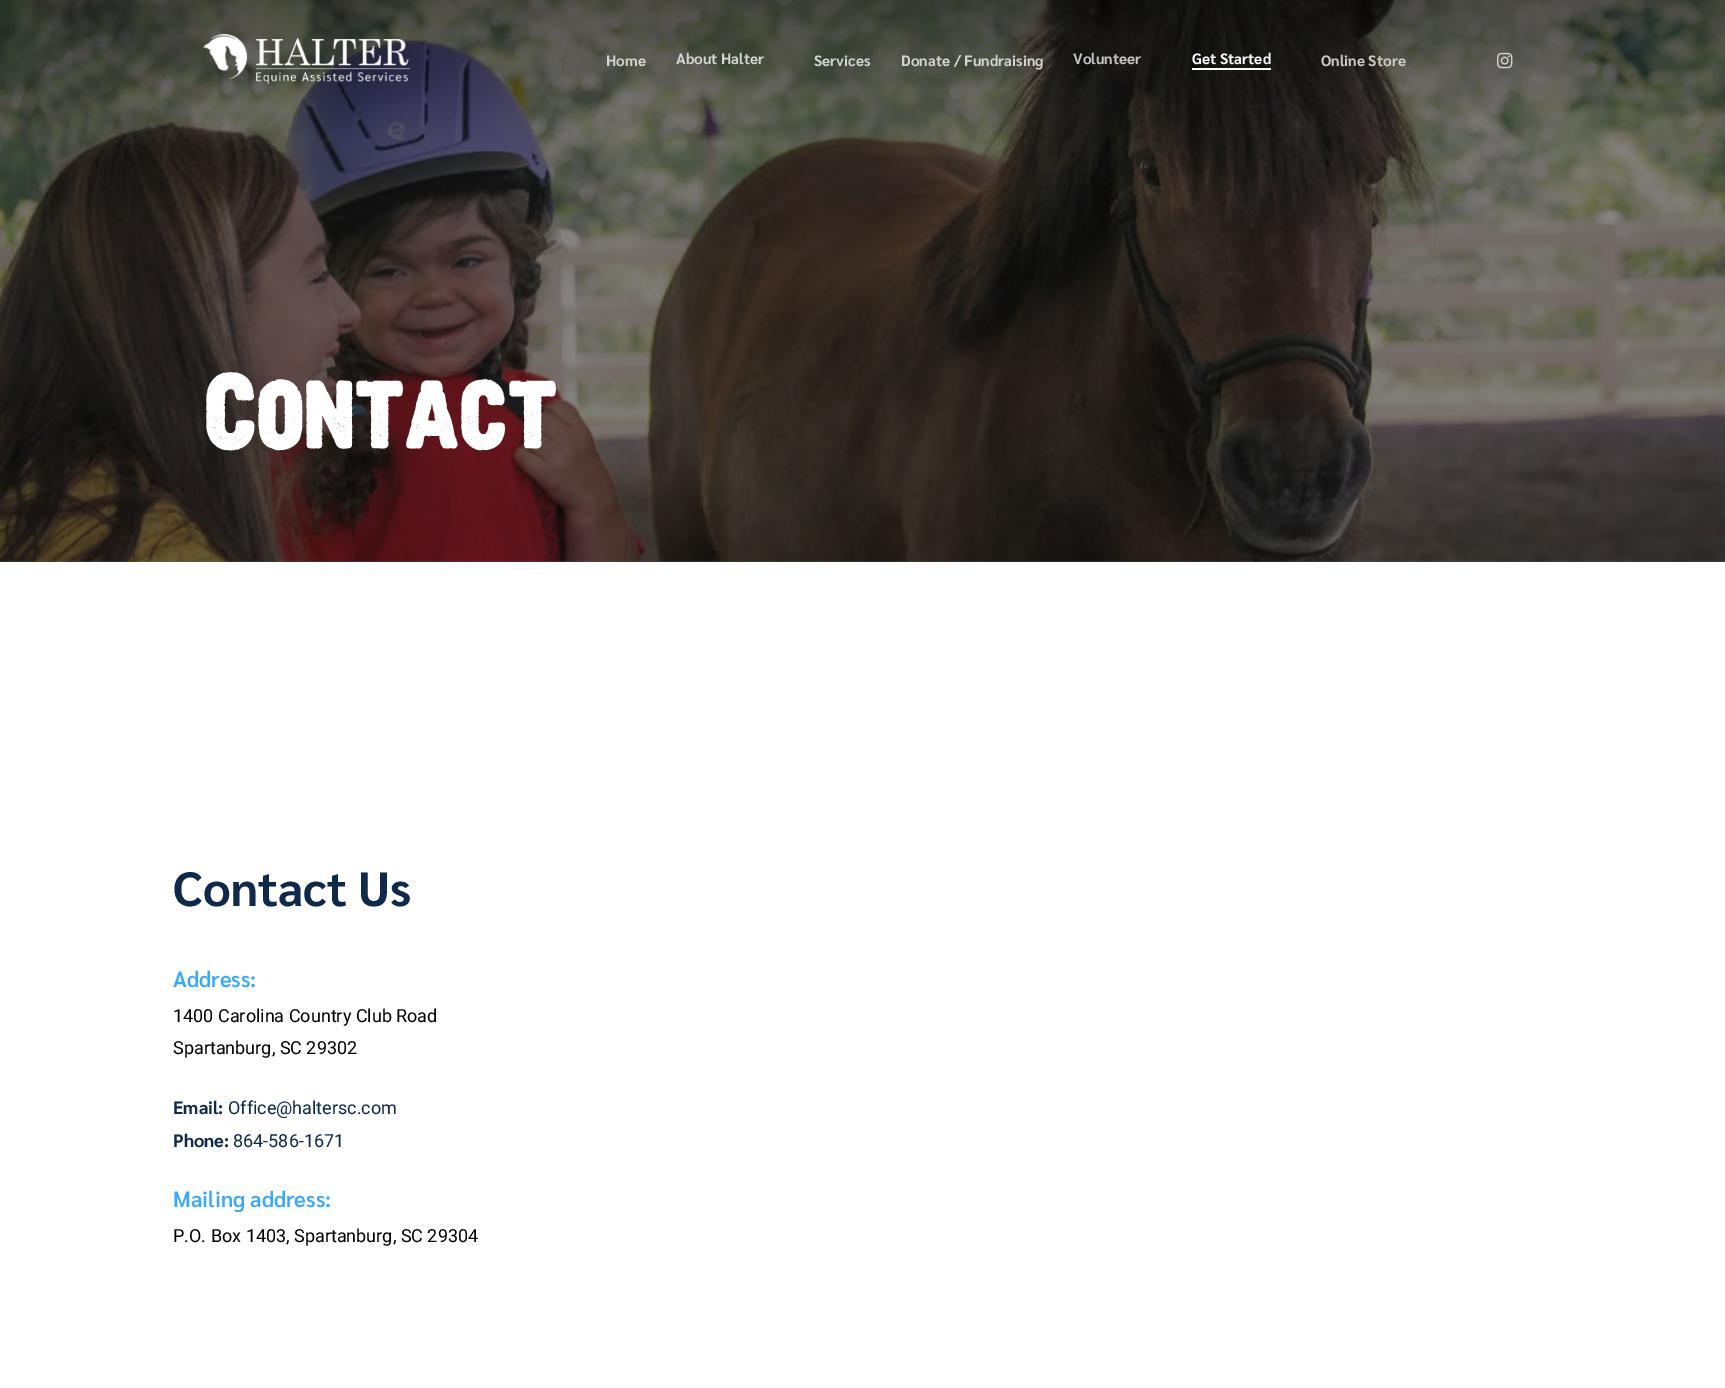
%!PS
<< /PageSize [1725 1388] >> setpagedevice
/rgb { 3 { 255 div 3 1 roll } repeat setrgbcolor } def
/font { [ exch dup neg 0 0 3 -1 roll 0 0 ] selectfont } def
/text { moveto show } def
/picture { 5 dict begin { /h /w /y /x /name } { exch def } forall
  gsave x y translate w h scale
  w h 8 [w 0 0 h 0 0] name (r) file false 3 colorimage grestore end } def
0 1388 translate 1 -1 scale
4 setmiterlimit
255 255 255 rgb
0 0 1725 1388 rectfill
(img_03.rgb) 0 0 1725 562 picture
(img_01.rgb) 203 34 207 50 picture
1192 68 79 2 rectfill
(img_02.rgb) 1497 52 16 17 picture
/Sarabun-Bold 15 font
212 212 210 rgb
(Home) 606 66 text
(About Halter) 676 64 text
(Services) 814 66 text
(Donate / Fundraising) 901 66 text
197 196 196 rgb
(Volunteer) 1073 64 text
255 255 255 rgb
(Get Started) 1192 64 text
204 203 202 rgb
(Online Store) 1321 66 text
/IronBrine-Bold 100 font
255 255 255 rgb
(Contact) 203 448 text
/Sarabun-Bold 48 font
16 40 73 rgb
(Contact Us) 173 906 text
/Sarabun-SemiBold 22 font
56 168 255 rgb
(Address:) 173 987 text
/Roboto-Regular 18 font
0 0 0 rgb
(1400 Carolina Country Club Road) 173 1022 text
(Spartanburg, SC 29302) 173 1054 text
/Sarabun-Bold 18 font
16 40 73 rgb
(Email:) 173 1114 text
/Roboto-Regular 18 font
(Office@haltersc.com) 228 1114 text
/Sarabun-Bold 18 font
(Phone:) 173 1147 text
/Roboto-Regular 18 font
(864-586-1671) 233 1147 text
/Sarabun-SemiBold 22 font
56 168 255 rgb
(Mailing address:) 173 1207 text
/Roboto-Regular 18 font
0 0 0 rgb
(P.O. Box 1403, Spartanburg, SC 29304) 173 1242 text
showpage
